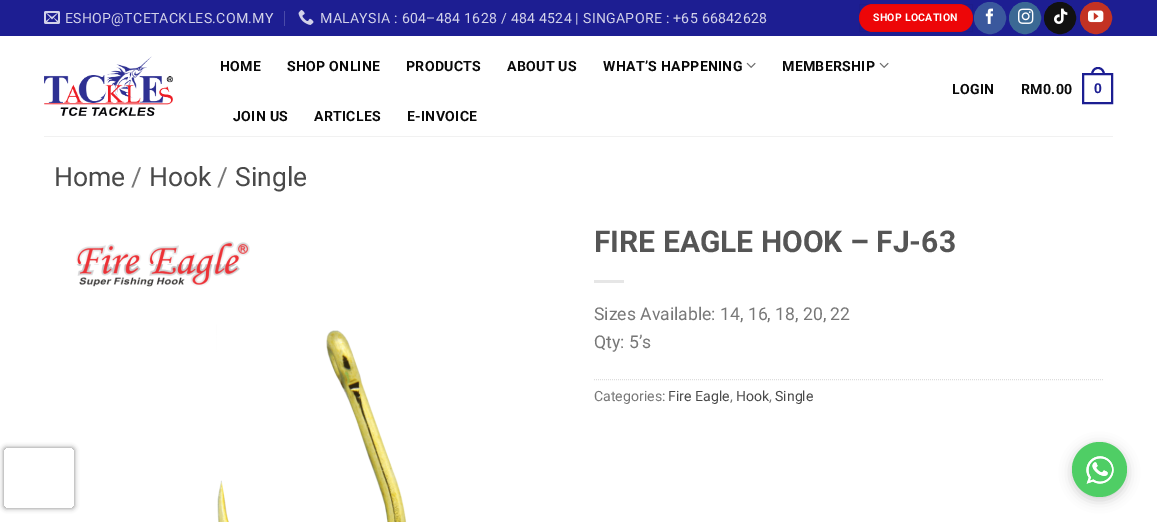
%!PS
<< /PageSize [1157 522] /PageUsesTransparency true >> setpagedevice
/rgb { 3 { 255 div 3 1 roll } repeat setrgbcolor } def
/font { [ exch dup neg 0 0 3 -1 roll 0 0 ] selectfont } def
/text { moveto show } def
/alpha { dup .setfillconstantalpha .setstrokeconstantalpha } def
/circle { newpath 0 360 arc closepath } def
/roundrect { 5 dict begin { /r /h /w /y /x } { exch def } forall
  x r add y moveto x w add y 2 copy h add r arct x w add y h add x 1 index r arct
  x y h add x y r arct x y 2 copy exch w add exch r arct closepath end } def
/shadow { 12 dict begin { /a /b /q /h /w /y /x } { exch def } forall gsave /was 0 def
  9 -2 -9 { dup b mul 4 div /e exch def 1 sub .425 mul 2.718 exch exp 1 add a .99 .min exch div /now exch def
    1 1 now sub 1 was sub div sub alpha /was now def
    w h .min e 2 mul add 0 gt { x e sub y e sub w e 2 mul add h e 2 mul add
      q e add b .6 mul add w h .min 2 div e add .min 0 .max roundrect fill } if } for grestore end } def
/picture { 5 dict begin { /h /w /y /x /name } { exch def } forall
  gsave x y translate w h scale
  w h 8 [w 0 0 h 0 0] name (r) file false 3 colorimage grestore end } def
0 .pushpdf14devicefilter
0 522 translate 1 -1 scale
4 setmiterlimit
255 255 255 rgb
0 0 1157 522 rectfill
29 30 146 rgb
0 0 1157 36 rectfill
(img_01.rgb) 44 11 16 13 picture
74 75 168 rgb
284 11 1 15 rectfill
(img_02.rgb) 298 10 16 15 picture
237 6 8 rgb
859 4 114 28 14 roundrect fill
0.05 alpha
0 0 0 rgb
859.5 4.5 113 27 rectstroke
1 alpha
58 88 157 rgb
990 18 15.5 circle gsave fill grestore
stroke
(img_03.rgb) 985 8 8 16 picture
59 105 148 rgb
1025 18 15.5 circle gsave fill grestore
stroke
(img_04.rgb) 1018 8 16 16 picture
17 17 17 rgb
1060 18 15.5 circle gsave fill grestore
stroke
(img_05.rgb) 1054 8 14 16 picture
195 50 35 rgb
1096 18 15.5 circle gsave fill grestore
stroke
(img_06.rgb) 1088 10 16 13 picture
(img_07.rgb) 44 56 129 60 picture
(img_08.rgb) 746 62 10 6 picture
(img_08.rgb) 879 62 10 6 picture
28 30 146 rgb
2 setlinewidth
1083 74 29 29 rectstroke
1098 67 moveto 4.5 0 7 4 7 8 rcurveto -14 0 rlineto 0 -4 2.5 -8 7 -8 rcurveto closepath 1098 69 moveto 3.5 0 5 3 5 6 rcurveto -10 0 rlineto 0 -3 1.5 -6 5 -6 rcurveto closepath eofill
241 241 241 rgb
44 136 1069 1 rectfill
(img_09.rgb) 76 241 331 281 picture
230 230 230 rgb
594 280 30 3 rectfill
221 221 221 rgb
1 setlinewidth
[1 1] 0 setdash
594 379.5 moveto 510 0 rlineto stroke
gsave
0 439 moveto 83 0 rlineto 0 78 rlineto -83 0 rlineto closepath 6 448 moveto 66 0 rlineto 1 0 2 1 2 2 rcurveto 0 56 rlineto 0 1 -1 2 -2 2 rcurveto -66 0 rlineto -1 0 -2 -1 -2 -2 rcurveto 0 -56 rlineto 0 -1 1 -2 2 -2 rcurveto closepath eoclip newpath
128 128 128 rgb
4 448 70 60 2 2.5 1 shadow
grestore
0 0 0 rgb
1072 445 55 55 27.5 6 0.2 shadow
79 206 101 rgb
1099.5 469.5 27.5 circle fill
(img_10.rgb) 1086 456 28 28 picture
/Roboto-Regular 14.1 font
210 210 233 rgb
65 23 moveto 0.28 0 (ESHOP@TCETACKLES.COM.MY) ashow
320 23 moveto 0.28 0 (MALAYSIA : 604–484 1628 / 484 4524 | SINGAPORE : +65 66842628) ashow
/Roboto-Bold 10.5 font
255 255 255 rgb
873 21 moveto 0.25 0 (SHOP LOCATION) ashow
/Roboto-Bold 14.1 font
10 10 10 rgb
220 71 moveto 0.28 0 (HOME) ashow
287 71 moveto 0.28 0 (SHOP ONLINE) ashow
406 71 moveto 0.28 0 (PRODUCTS) ashow
507 71 moveto 0.28 0 (ABOUT US) ashow
603 71 moveto 0.28 0 (WHAT’S HAPPENING) ashow
782 71 moveto 0.28 0 (MEMBERSHIP) ashow
233 121 moveto 0.28 0 (JOIN US) ashow
314 121 moveto 0.28 0 (ARTICLES) ashow
407 121 moveto 0.28 0 (E-INVOICE) ashow
952 94 moveto 0.28 0 (LOGIN) ashow
1021 94 moveto 0.28 0 (RM0.00) ashow
/LiberationSans-Bold 14.1 font
28 30 146 rgb
1094 93 moveto 0.28 0 (0) ashow
/Roboto-Regular 26.5 font
73 73 73 rgb
(Home) 54 186 text
119 119 119 rgb
(/) 131 186 text
73 73 73 rgb
(Hook) 149 186 text
119 119 119 rgb
(/) 217 186 text
73 73 73 rgb
(Single) 235 186 text
/Roboto-Bold 30 font
85 85 85 rgb
(FIRE EAGLE HOOK – FJ-63) 594 252 text
/Roboto-Regular 17.6 font
119 119 119 rgb
(Sizes Available: 14, 16, 18, 20, 22) 594 320 text
(Qty: 5’s) 594 348 text
/Roboto-Regular 14.1 font
(Categories:) 594 401 text
73 73 73 rgb
(Fire Eagle) 668 401 text
119 119 119 rgb
(,) 730 401 text
73 73 73 rgb
(Hook) 736 401 text
119 119 119 rgb
(,) 769 401 text
73 73 73 rgb
(Single) 775 401 text
.poppdf14devicefilter showpage
